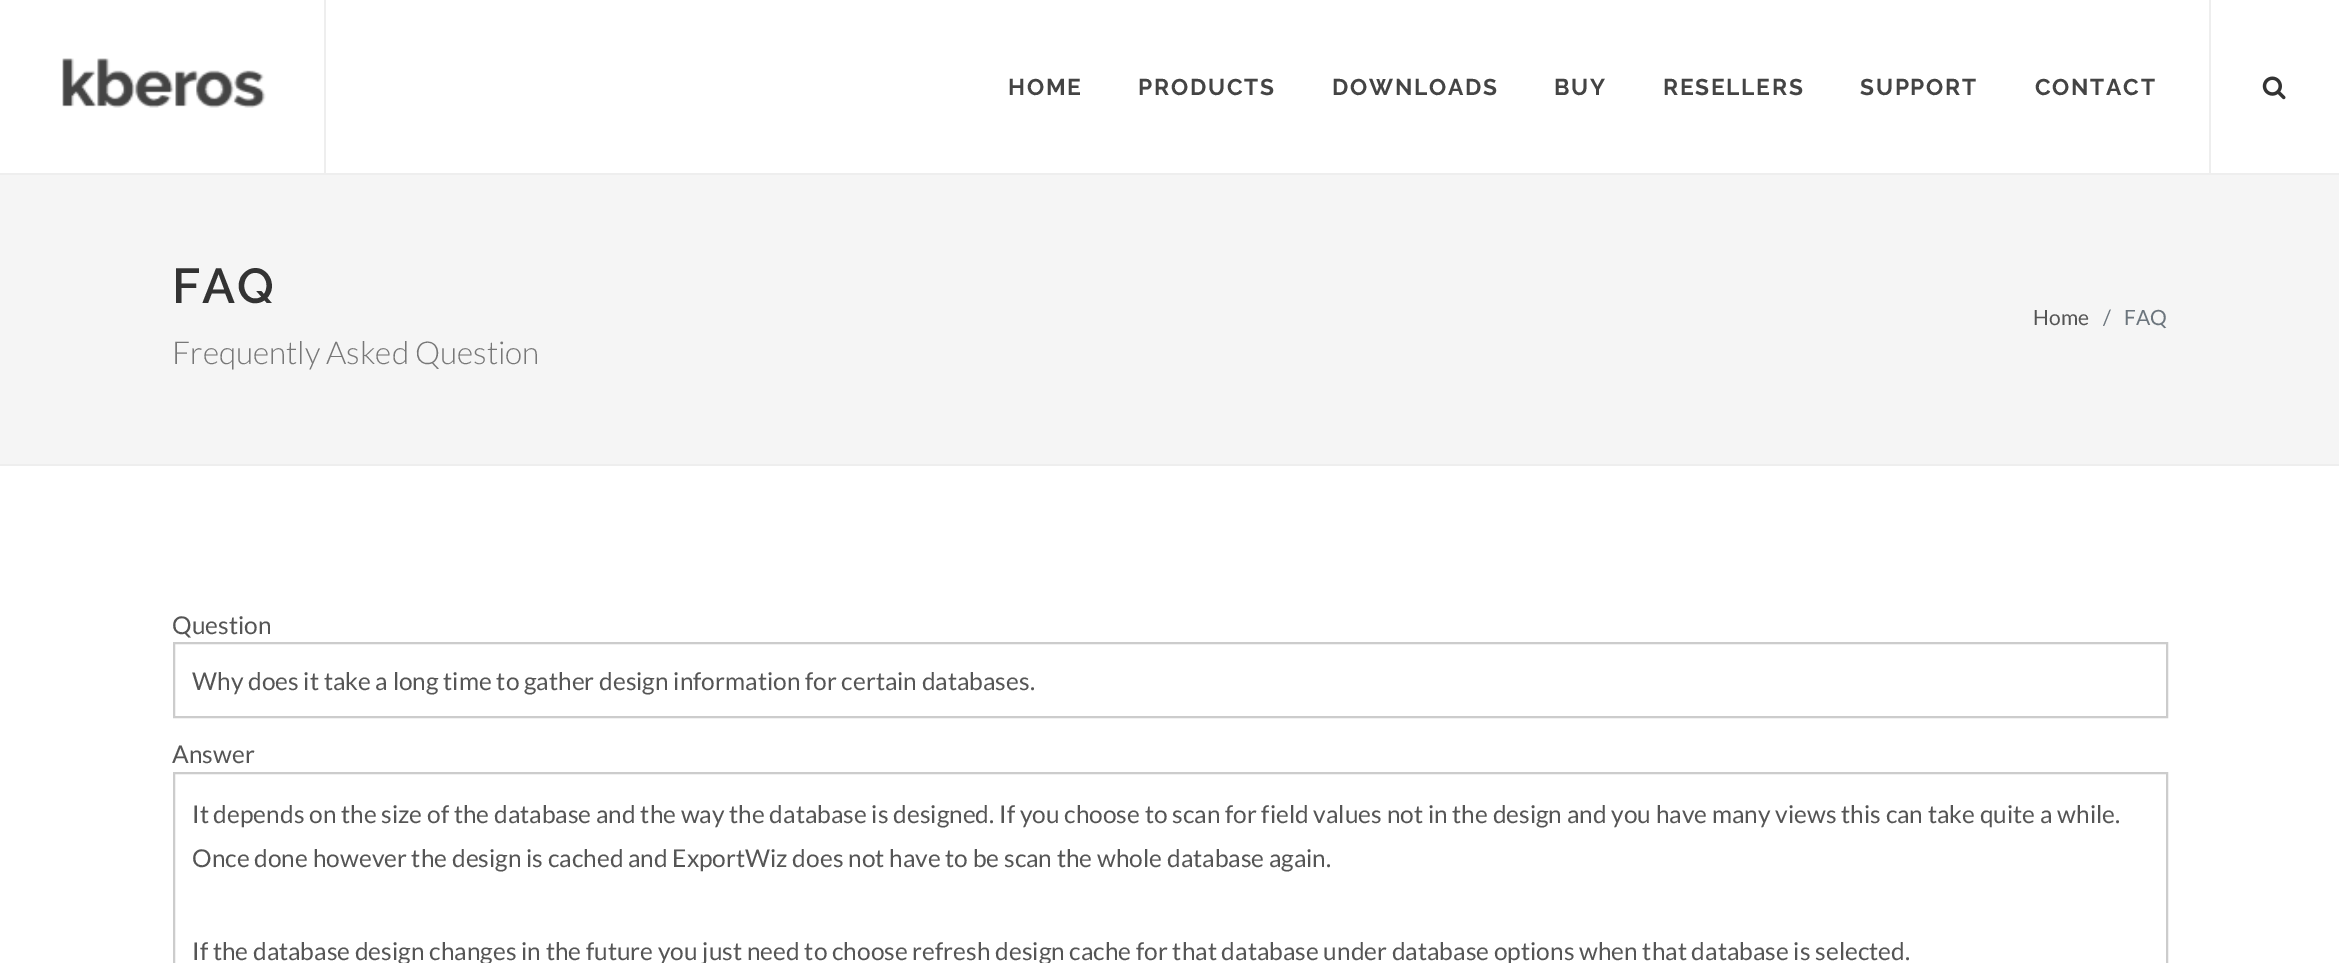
%!PS
<< /PageSize [2339 963] >> setpagedevice
/rgb { 3 { 255 div 3 1 roll } repeat setrgbcolor } def
/font { [ exch dup neg 0 0 3 -1 roll 0 0 ] selectfont } def
/text { moveto show } def
/picture { 5 dict begin { /h /w /y /x /name } { exch def } forall
  gsave x y translate w h scale
  w h 8 [w 0 0 h 0 0] name (r) file false 3 colorimage grestore end } def
0 963 translate 1 -1 scale
4 setmiterlimit
255 255 255 rgb
0 0 2339 963 rectfill
238 238 238 rgb
0 173 2339 2 rectfill
324 0 2 175 rectfill
(img_01.rgb) 62 58 204 50 picture
2209 0 2 175 rectfill
(img_02.rgb) 2262 76 24 24 picture
245 245 245 rgb
0 175 2339 289 rectfill
238 238 238 rgb
0 464 2339 2 rectfill
204 204 204 rgb
2 setlinewidth
174 643 1993 74 rectstroke
174 773 1993 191 rectstroke
/Raleway-Bold 22.75 font
68 68 68 rgb
1008 95 moveto 1.75 0 (HOME) ashow
1138 95 moveto 1.75 0 (PRODUCTS) ashow
1332 95 moveto 1.75 0 (DOWNLOADS) ashow
1554 95 moveto 1.75 0 (BUY) ashow
1663 95 moveto 1.75 0 (RESELLERS) ashow
1860 95 moveto 1.75 0 (SUPPORT) ashow
2035 95 moveto 1.75 0 (CONTACT) ashow
/Raleway-SemiBold 49 font
51 51 51 rgb
172 303 moveto 1.75 0 (FAQ) ashow
/Lato-Regular 21 font
85 85 85 rgb
(Home) 2033 325 text
108 117 125 rgb
(/) 2103 325 text
(FAQ) 2124 325 text
/Lato-Light 31.5 font
119 119 119 rgb
(Frequently Asked Question) 172 364 text
/Lato-Regular 24.5 font
85 85 85 rgb
(Question) 172 634 text
(Why does it take a long time to gather design information for certain databases.) 192 690 text
(Answer) 172 763 text
(It depends on the size of the database and the way the database is designed. If you choose to scan for field values not in the design and you have many views this can take quite a while.) 192 823 text
(Once done however the design is cached and ExportWiz does not have to be scan the whole database again.) 192 867 text
(If the database design changes in the future you just need to choose refresh design cache for that database under database options when that database is selected.) 192 960 text
showpage
